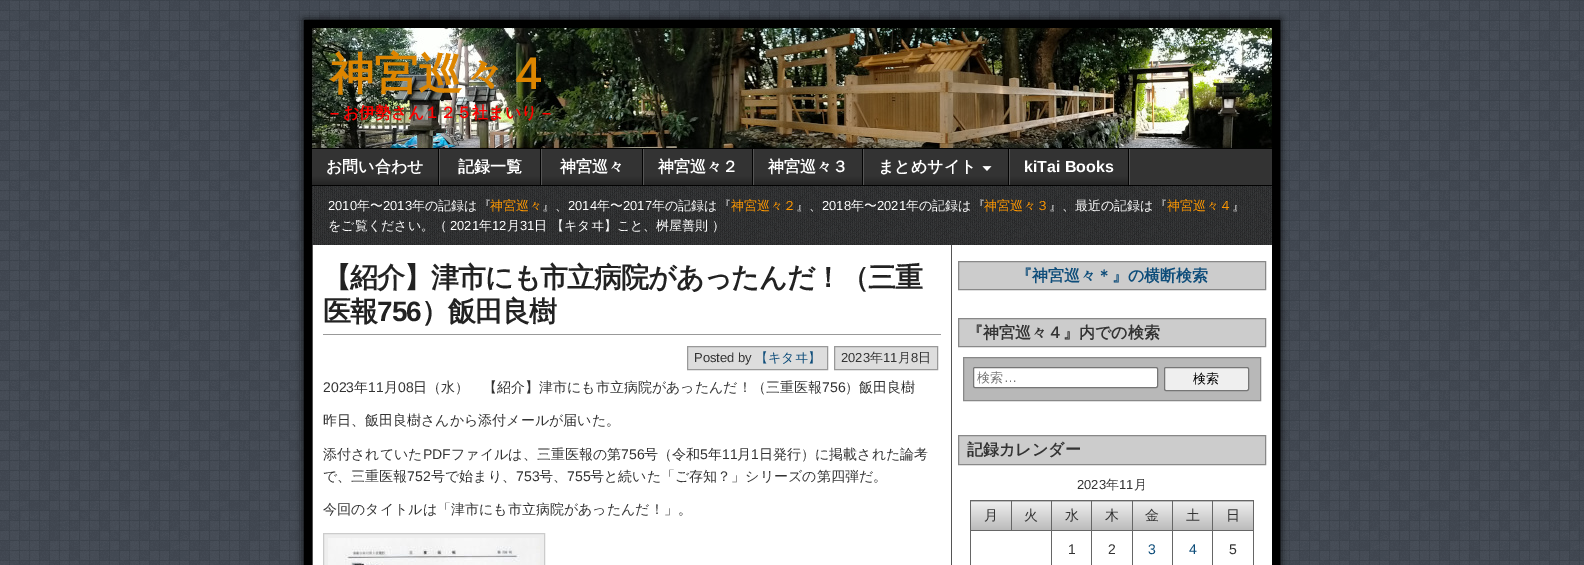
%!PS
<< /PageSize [1584 565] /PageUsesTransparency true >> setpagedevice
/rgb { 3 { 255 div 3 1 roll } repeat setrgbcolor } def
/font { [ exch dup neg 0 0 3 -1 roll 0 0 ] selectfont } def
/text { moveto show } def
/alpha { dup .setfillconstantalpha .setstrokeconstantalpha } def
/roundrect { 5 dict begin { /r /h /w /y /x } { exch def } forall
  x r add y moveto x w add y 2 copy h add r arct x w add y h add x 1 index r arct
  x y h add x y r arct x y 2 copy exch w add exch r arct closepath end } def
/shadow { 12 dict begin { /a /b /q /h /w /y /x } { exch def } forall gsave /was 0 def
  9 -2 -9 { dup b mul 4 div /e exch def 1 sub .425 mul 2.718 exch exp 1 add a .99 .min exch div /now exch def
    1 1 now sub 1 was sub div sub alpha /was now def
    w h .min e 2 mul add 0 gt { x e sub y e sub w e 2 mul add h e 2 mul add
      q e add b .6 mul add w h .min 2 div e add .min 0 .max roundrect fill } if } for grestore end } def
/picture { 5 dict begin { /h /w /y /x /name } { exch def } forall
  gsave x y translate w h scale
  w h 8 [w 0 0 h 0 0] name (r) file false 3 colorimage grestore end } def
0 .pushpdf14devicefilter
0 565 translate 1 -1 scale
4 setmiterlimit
255 255 255 rgb
0 0 1584 565 rectfill
(img_01.rgb) 0 0 1584 565 picture
0 0 0 rgb
304 20 976 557 0 4 1 shadow
255 255 255 rgb
313 245 959 320 rectfill
0 0 0 rgb
8 setlinewidth
308 24 968 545 rectstroke
(img_02.rgb) 312 28 960 120 picture
51 51 51 rgb
1130 149 142 36 rectfill
85 85 85 rgb
1129 149 1 36 rectfill
gsave 312 149 moveto 126 0 rlineto 0 36 rlineto -126 0 rlineto closepath clip newpath
<< /ShadingType 2 /ColorSpace /DeviceRGB /Coords [375 149 375 185] /Extend [true true] /Function << /FunctionType 3 /Domain [0 1] /Functions [<< /FunctionType 2 /Domain [0 1] /C0 [0.2 0.2 0.2] /C1 [0.2 0.2 0.2] /N 1 >> << /FunctionType 2 /Domain [0 1] /C0 [0.2 0.2 0.2] /C1 [0.145 0.145 0.145] /N 1 >>] /Bounds [0.75] /Encode [0 1 0 1] >> >> shfill grestore
439 149 1 36 rectfill
gsave 440 149 moveto 100 0 rlineto 0 36 rlineto -100 0 rlineto closepath clip newpath
<< /ShadingType 2 /ColorSpace /DeviceRGB /Coords [490 149 490 185] /Extend [true true] /Function << /FunctionType 3 /Domain [0 1] /Functions [<< /FunctionType 2 /Domain [0 1] /C0 [0.2 0.2 0.2] /C1 [0.2 0.2 0.2] /N 1 >> << /FunctionType 2 /Domain [0 1] /C0 [0.2 0.2 0.2] /C1 [0.145 0.145 0.145] /N 1 >>] /Bounds [0.75] /Encode [0 1 0 1] >> >> shfill grestore
541 149 1 36 rectfill
gsave 542 149 moveto 100 0 rlineto 0 36 rlineto -100 0 rlineto closepath clip newpath
<< /ShadingType 2 /ColorSpace /DeviceRGB /Coords [592 149 592 185] /Extend [true true] /Function << /FunctionType 3 /Domain [0 1] /Functions [<< /FunctionType 2 /Domain [0 1] /C0 [0.2 0.2 0.2] /C1 [0.2 0.2 0.2] /N 1 >> << /FunctionType 2 /Domain [0 1] /C0 [0.2 0.2 0.2] /C1 [0.145 0.145 0.145] /N 1 >>] /Bounds [0.75] /Encode [0 1 0 1] >> >> shfill grestore
643 149 1 36 rectfill
gsave 644 149 moveto 108 0 rlineto 0 36 rlineto -108 0 rlineto closepath clip newpath
<< /ShadingType 2 /ColorSpace /DeviceRGB /Coords [698 149 698 185] /Extend [true true] /Function << /FunctionType 3 /Domain [0 1] /Functions [<< /FunctionType 2 /Domain [0 1] /C0 [0.2 0.2 0.2] /C1 [0.2 0.2 0.2] /N 1 >> << /FunctionType 2 /Domain [0 1] /C0 [0.2 0.2 0.2] /C1 [0.145 0.145 0.145] /N 1 >>] /Bounds [0.75] /Encode [0 1 0 1] >> >> shfill grestore
753 149 1 36 rectfill
gsave 754 149 moveto 108 0 rlineto 0 36 rlineto -108 0 rlineto closepath clip newpath
<< /ShadingType 2 /ColorSpace /DeviceRGB /Coords [808 149 808 185] /Extend [true true] /Function << /FunctionType 3 /Domain [0 1] /Functions [<< /FunctionType 2 /Domain [0 1] /C0 [0.2 0.2 0.2] /C1 [0.2 0.2 0.2] /N 1 >> << /FunctionType 2 /Domain [0 1] /C0 [0.2 0.2 0.2] /C1 [0.145 0.145 0.145] /N 1 >>] /Bounds [0.75] /Encode [0 1 0 1] >> >> shfill grestore
863 149 1 36 rectfill
gsave 864 149 moveto 144 0 rlineto 0 36 rlineto -144 0 rlineto closepath clip newpath
<< /ShadingType 2 /ColorSpace /DeviceRGB /Coords [936 149 936 185] /Extend [true true] /Function << /FunctionType 3 /Domain [0 1] /Functions [<< /FunctionType 2 /Domain [0 1] /C0 [0.2 0.2 0.2] /C1 [0.2 0.2 0.2] /N 1 >> << /FunctionType 2 /Domain [0 1] /C0 [0.2 0.2 0.2] /C1 [0.145 0.145 0.145] /N 1 >>] /Bounds [0.75] /Encode [0 1 0 1] >> >> shfill grestore
(img_03.rgb) 982 166 10 5 picture
1009 149 1 36 rectfill
gsave 1010 149 moveto 118 0 rlineto 0 36 rlineto -118 0 rlineto closepath clip newpath
<< /ShadingType 2 /ColorSpace /DeviceRGB /Coords [1069 149 1069 185] /Extend [true true] /Function << /FunctionType 3 /Domain [0 1] /Functions [<< /FunctionType 2 /Domain [0 1] /C0 [0.2 0.2 0.2] /C1 [0.2 0.2 0.2] /N 1 >> << /FunctionType 2 /Domain [0 1] /C0 [0.2 0.2 0.2] /C1 [0.145 0.145 0.145] /N 1 >>] /Bounds [0.75] /Encode [0 1 0 1] >> >> shfill grestore
(img_04.rgb) 312 186 960 59 picture
951 245 1 320 rectfill
312 245 1 320 rectfill
153 153 153 rgb
323 334 618 1 rectfill
221 221 221 rgb
687.5 346.5 moveto 140 0 rlineto 0 23 rlineto -140 0 rlineto closepath gsave fill grestore
153 153 153 rgb
1 setlinewidth
stroke
221 221 221 rgb
834.5 346.5 moveto 103 0 rlineto 0 23 rlineto -103 0 rlineto closepath gsave fill grestore
153 153 153 rgb
stroke
238 238 238 rgb
323.5 533.5 moveto 221 0 rlineto 0 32 rlineto -221 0 rlineto closepath gsave fill grestore
204 204 204 rgb
stroke
(img_05.rgb) 328 538 212 27 picture
958.5 261.5 moveto 307 0 rlineto 0 28 rlineto -307 0 rlineto closepath gsave fill grestore
136 136 136 rgb
stroke
204 204 204 rgb
958.5 318.5 moveto 307 0 rlineto 0 28 rlineto -307 0 rlineto closepath gsave fill grestore
136 136 136 rgb
stroke
184 184 184 rgb
963.5 357.5 moveto 297 0 rlineto 0 43 rlineto -297 0 rlineto closepath gsave fill grestore
136 136 136 rgb
stroke
255 255 255 rgb
973.5 367.5 184 20 1.5 roundrect gsave fill grestore
118 118 118 rgb
stroke
239 239 239 rgb
1164.5 367.5 84 23 1.5 roundrect gsave fill grestore
118 118 118 rgb
stroke
204 204 204 rgb
958.5 435.5 moveto 307 0 rlineto 0 29 rlineto -307 0 rlineto closepath gsave fill grestore
136 136 136 rgb
stroke
gsave 971 501 moveto 40 0 rlineto 0 1 rlineto -40 0 rlineto closepath clip newpath
<< /ShadingType 2 /ColorSpace /DeviceRGB /Coords [991 474 991 502] /Extend [true true] /Function << /FunctionType 2 /Domain [0 1] /C0 [0.933 0.933 0.933] /C1 [0.733 0.733 0.733] /N 1 >> >> shfill grestore
gsave 971 502 moveto 40 0 rlineto 0 28 rlineto -40 0 rlineto closepath clip newpath
<< /ShadingType 2 /ColorSpace /DeviceRGB /Coords [991 502 991 530] /Extend [true true] /Function << /FunctionType 2 /Domain [0 1] /C0 [0.933 0.933 0.933] /C1 [0.733 0.733 0.733] /N 1 >> >> shfill grestore
102 102 102 rgb
1212 500 42 1 rectfill
gsave 1172 501 moveto 41 0 rlineto 0 1 rlineto -41 0 rlineto closepath clip newpath
<< /ShadingType 2 /ColorSpace /DeviceRGB /Coords [1193 474 1193 502] /Extend [true true] /Function << /FunctionType 2 /Domain [0 1] /C0 [0.933 0.933 0.933] /C1 [0.733 0.733 0.733] /N 1 >> >> shfill grestore
1212 530 42 1 rectfill
1212 530 1 35 rectfill
1172 530 41 1 rectfill
1212 500 1 31 rectfill
1172 500 41 1 rectfill
1172 530 1 35 rectfill
1132 530 41 1 rectfill
1172 500 1 31 rectfill
1132 500 41 1 rectfill
gsave 1132 501 moveto 40 0 rlineto 0 1 rlineto -40 0 rlineto closepath clip newpath
<< /ShadingType 2 /ColorSpace /DeviceRGB /Coords [1152 474 1152 502] /Extend [true true] /Function << /FunctionType 2 /Domain [0 1] /C0 [0.933 0.933 0.933] /C1 [0.733 0.733 0.733] /N 1 >> >> shfill grestore
1132 530 1 35 rectfill
1091 530 42 1 rectfill
1132 500 1 31 rectfill
1091 500 42 1 rectfill
gsave 1052 501 moveto 40 0 rlineto 0 1 rlineto -40 0 rlineto closepath clip newpath
<< /ShadingType 2 /ColorSpace /DeviceRGB /Coords [1072 474 1072 502] /Extend [true true] /Function << /FunctionType 2 /Domain [0 1] /C0 [0.933 0.933 0.933] /C1 [0.733 0.733 0.733] /N 1 >> >> shfill grestore
1091 530 1 35 rectfill
1051 530 41 1 rectfill
1091 500 1 31 rectfill
1051 500 41 1 rectfill
gsave 1011 501 moveto 41 0 rlineto 0 1 rlineto -41 0 rlineto closepath clip newpath
<< /ShadingType 2 /ColorSpace /DeviceRGB /Coords [1032 474 1032 502] /Extend [true true] /Function << /FunctionType 2 /Domain [0 1] /C0 [0.933 0.933 0.933] /C1 [0.733 0.733 0.733] /N 1 >> >> shfill grestore
1051 530 1 35 rectfill
970 530 82 1 rectfill
1051 500 1 31 rectfill
1011 500 41 1 rectfill
1011 500 1 31 rectfill
970 500 42 1 rectfill
970 530 1 35 rectfill
970 500 1 31 rectfill
gsave 1012 502 moveto 39 0 rlineto 0 28 rlineto -39 0 rlineto closepath clip newpath
<< /ShadingType 2 /ColorSpace /DeviceRGB /Coords [1032 502 1032 530] /Extend [true true] /Function << /FunctionType 2 /Domain [0 1] /C0 [0.933 0.933 0.933] /C1 [0.733 0.733 0.733] /N 1 >> >> shfill grestore
gsave 1052 502 moveto 39 0 rlineto 0 28 rlineto -39 0 rlineto closepath clip newpath
<< /ShadingType 2 /ColorSpace /DeviceRGB /Coords [1072 502 1072 530] /Extend [true true] /Function << /FunctionType 2 /Domain [0 1] /C0 [0.933 0.933 0.933] /C1 [0.733 0.733 0.733] /N 1 >> >> shfill grestore
gsave 1092 501 moveto 40 0 rlineto 0 1 rlineto -40 0 rlineto closepath clip newpath
<< /ShadingType 2 /ColorSpace /DeviceRGB /Coords [1112 474 1112 502] /Extend [true true] /Function << /FunctionType 2 /Domain [0 1] /C0 [0.933 0.933 0.933] /C1 [0.733 0.733 0.733] /N 1 >> >> shfill grestore
gsave 1092 502 moveto 40 0 rlineto 0 28 rlineto -40 0 rlineto closepath clip newpath
<< /ShadingType 2 /ColorSpace /DeviceRGB /Coords [1112 502 1112 530] /Extend [true true] /Function << /FunctionType 2 /Domain [0 1] /C0 [0.933 0.933 0.933] /C1 [0.733 0.733 0.733] /N 1 >> >> shfill grestore
gsave 1133 502 moveto 39 0 rlineto 0 28 rlineto -39 0 rlineto closepath clip newpath
<< /ShadingType 2 /ColorSpace /DeviceRGB /Coords [1152 502 1152 530] /Extend [true true] /Function << /FunctionType 2 /Domain [0 1] /C0 [0.933 0.933 0.933] /C1 [0.733 0.733 0.733] /N 1 >> >> shfill grestore
gsave 1173 502 moveto 39 0 rlineto 0 28 rlineto -39 0 rlineto closepath clip newpath
<< /ShadingType 2 /ColorSpace /DeviceRGB /Coords [1193 502 1193 530] /Extend [true true] /Function << /FunctionType 2 /Domain [0 1] /C0 [0.933 0.933 0.933] /C1 [0.733 0.733 0.733] /N 1 >> >> shfill grestore
gsave 1213 501 moveto 40 0 rlineto 0 1 rlineto -40 0 rlineto closepath clip newpath
<< /ShadingType 2 /ColorSpace /DeviceRGB /Coords [1233 474 1233 502] /Extend [true true] /Function << /FunctionType 2 /Domain [0 1] /C0 [0.933 0.933 0.933] /C1 [0.733 0.733 0.733] /N 1 >> >> shfill grestore
gsave 1213 502 moveto 40 0 rlineto 0 28 rlineto -40 0 rlineto closepath clip newpath
<< /ShadingType 2 /ColorSpace /DeviceRGB /Coords [1233 502 1233 530] /Extend [true true] /Function << /FunctionType 2 /Domain [0 1] /C0 [0.933 0.933 0.933] /C1 [0.733 0.733 0.733] /N 1 >> >> shfill grestore
1253 530 1 35 rectfill
1253 500 1 31 rectfill
/WenQuanYiZenHei-Bold 44 font
221 133 0 rgb
(神宮巡々４) 330 89 text
/LiberationSans-Bold 16 font
255 0 0 rgb
(–) 330 118 text
/WenQuanYiZenHei-Bold 16 font
(お伊勢さん１２５社まいり) 343 118 text
/LiberationSans-Bold 16 font
(–) 542 118 text
/WenQuanYiZenHei-Bold 16 font
255 255 255 rgb
(お問い合わせ) 326 172 text
(記録一覧) 458 172 text
(神宮巡々) 560 172 text
(神宮巡々２) 658 172 text
(神宮巡々３) 768 172 text
(まとめサイト) 878 172 text
/LiberationSans-Bold 16 font
(kiTai Books) 1024 172 text
/LiberationSans-Regular 13 font
(2010) 328 210 text
/WenQuanYiZenHei-Medium 13 font
(年〜) 357 210 text
/LiberationSans-Regular 13 font
(2013) 383 210 text
/WenQuanYiZenHei-Medium 13 font
(年の記録は『) 412 210 text
255 152 0 rgb
(神宮巡々) 490 210 text
255 255 255 rgb
(』、) 542 210 text
/LiberationSans-Regular 13 font
(2014) 568 210 text
/WenQuanYiZenHei-Medium 13 font
(年〜) 597 210 text
/LiberationSans-Regular 13 font
(2017) 623 210 text
/WenQuanYiZenHei-Medium 13 font
(年の記録は『) 652 210 text
255 152 0 rgb
(神宮巡々２) 731 210 text
255 255 255 rgb
(』、) 796 210 text
/LiberationSans-Regular 13 font
(2018) 822 210 text
/WenQuanYiZenHei-Medium 13 font
(年〜) 851 210 text
/LiberationSans-Regular 13 font
(2021) 877 210 text
/WenQuanYiZenHei-Medium 13 font
(年の記録は『) 906 210 text
255 152 0 rgb
(神宮巡々３) 984 210 text
255 255 255 rgb
(』、最近の記録は『) 1049 210 text
255 152 0 rgb
(神宮巡々４) 1167 210 text
255 255 255 rgb
(』) 1232 210 text
(をご覧ください。（) 328 230 text
/LiberationSans-Regular 13 font
(2021) 450 230 text
/WenQuanYiZenHei-Medium 13 font
(年) 479 230 text
/LiberationSans-Regular 13 font
(12) 492 230 text
/WenQuanYiZenHei-Medium 13 font
(月) 507 230 text
/LiberationSans-Regular 13 font
(31) 520 230 text
/WenQuanYiZenHei-Medium 13 font
(日 【キタヰ】こと、桝屋善則 ）) 534 230 text
/WenQuanYiZenHei-Bold 28 font
34 34 34 rgb
323 287 moveto -1 0 (【紹介】津市にも市立病院があったんだ！（三重) ashow
323 321 moveto -1 0 (医報) ashow
/LiberationSans-Bold 28 font
377 321 moveto -1 0 (756) ashow
/WenQuanYiZenHei-Bold 28 font
421 321 moveto -1 0 (）飯田良樹) ashow
/LiberationSans-Regular 13 font
51 51 51 rgb
(Posted by) 694 362 text
/WenQuanYiZenHei-Medium 13 font
14 77 122 rgb
(【キタヰ】) 755 362 text
/LiberationSans-Regular 13 font
51 51 51 rgb
(2023) 841 362 text
/WenQuanYiZenHei-Medium 13 font
(年) 870 362 text
/LiberationSans-Regular 13 font
(11) 883 362 text
/WenQuanYiZenHei-Medium 13 font
(月) 898 362 text
/LiberationSans-Regular 13 font
(8) 911 362 text
/WenQuanYiZenHei-Medium 13 font
(日) 918 362 text
/LiberationSans-Regular 14 font
(2023) 323 392 text
/WenQuanYiZenHei-Medium 14 font
(年) 354 392 text
/LiberationSans-Regular 14 font
(11) 368 392 text
/WenQuanYiZenHei-Medium 14 font
(月) 384 392 text
/LiberationSans-Regular 14 font
(08) 398 392 text
/WenQuanYiZenHei-Medium 14 font
(日（水）　【紹介】津市にも市立病院があったんだ！（三重医報) 413 392 text
/LiberationSans-Regular 14 font
(756) 822 392 text
/WenQuanYiZenHei-Medium 14 font
(）飯田良樹) 845 392 text
(昨日、飯田良樹さんから添付メールが届いた。) 323 425 text
(添付されていた) 323 459 text
/LiberationSans-Regular 14 font
(PDF) 423 459 text
/WenQuanYiZenHei-Medium 14 font
(ファイルは、三重医報の第) 451 459 text
/LiberationSans-Regular 14 font
(756) 621 459 text
/WenQuanYiZenHei-Medium 14 font
(号（令和) 644 459 text
/LiberationSans-Regular 14 font
(5) 700 459 text
/WenQuanYiZenHei-Medium 14 font
(年) 708 459 text
/LiberationSans-Regular 14 font
(11) 722 459 text
/WenQuanYiZenHei-Medium 14 font
(月) 737 459 text
/LiberationSans-Regular 14 font
(1) 751 459 text
/WenQuanYiZenHei-Medium 14 font
(日発行）に掲載された論考) 759 459 text
(で、三重医報) 323 481 text
/LiberationSans-Regular 14 font
(752) 407 481 text
/WenQuanYiZenHei-Medium 14 font
(号で始まり、) 431 481 text
/LiberationSans-Regular 14 font
(753) 516 481 text
/WenQuanYiZenHei-Medium 14 font
(号、) 539 481 text
/LiberationSans-Regular 14 font
(755) 567 481 text
/WenQuanYiZenHei-Medium 14 font
(号と続いた「ご存知？」シリーズの第四弾だ。) 590 481 text
(今回のタイトルは「津市にも市立病院があったんだ！」。) 323 514 text
/WenQuanYiZenHei-Bold 16 font
14 77 122 rgb
(『神宮巡々＊』の横断検索) 1016 281 text
51 51 51 rgb
(『神宮巡々４』内での検索) 967 338 text
/WenQuanYiZenHei-Medium 13 font
117 117 117 rgb
(検索) 977 382 text
/LiberationSans-Regular 13 font
(…) 1004 382 text
/WenQuanYiZenHei-Medium 13 font
0 0 0 rgb
(検索) 1193 383 text
/WenQuanYiZenHei-Bold 16 font
51 51 51 rgb
(記録カレンダー) 967 455 text
/LiberationSans-Regular 13 font
(2023) 1077 489 text
/WenQuanYiZenHei-Medium 13 font
(年) 1106 489 text
/LiberationSans-Regular 13 font
(11) 1119 489 text
/WenQuanYiZenHei-Medium 13 font
(月) 1134 489 text
/WenQuanYiZenHei-Medium 14 font
(月) 984 520 text
(火) 1024 520 text
(水) 1065 520 text
(木) 1105 520 text
(金) 1145 520 text
(土) 1186 520 text
(日) 1226 520 text
/LiberationSans-Regular 14 font
(1) 1068 554 text
(2) 1108 554 text
14 77 122 rgb
(3) 1148 554 text
(4) 1189 554 text
51 51 51 rgb
(5) 1229 554 text
.poppdf14devicefilter showpage
